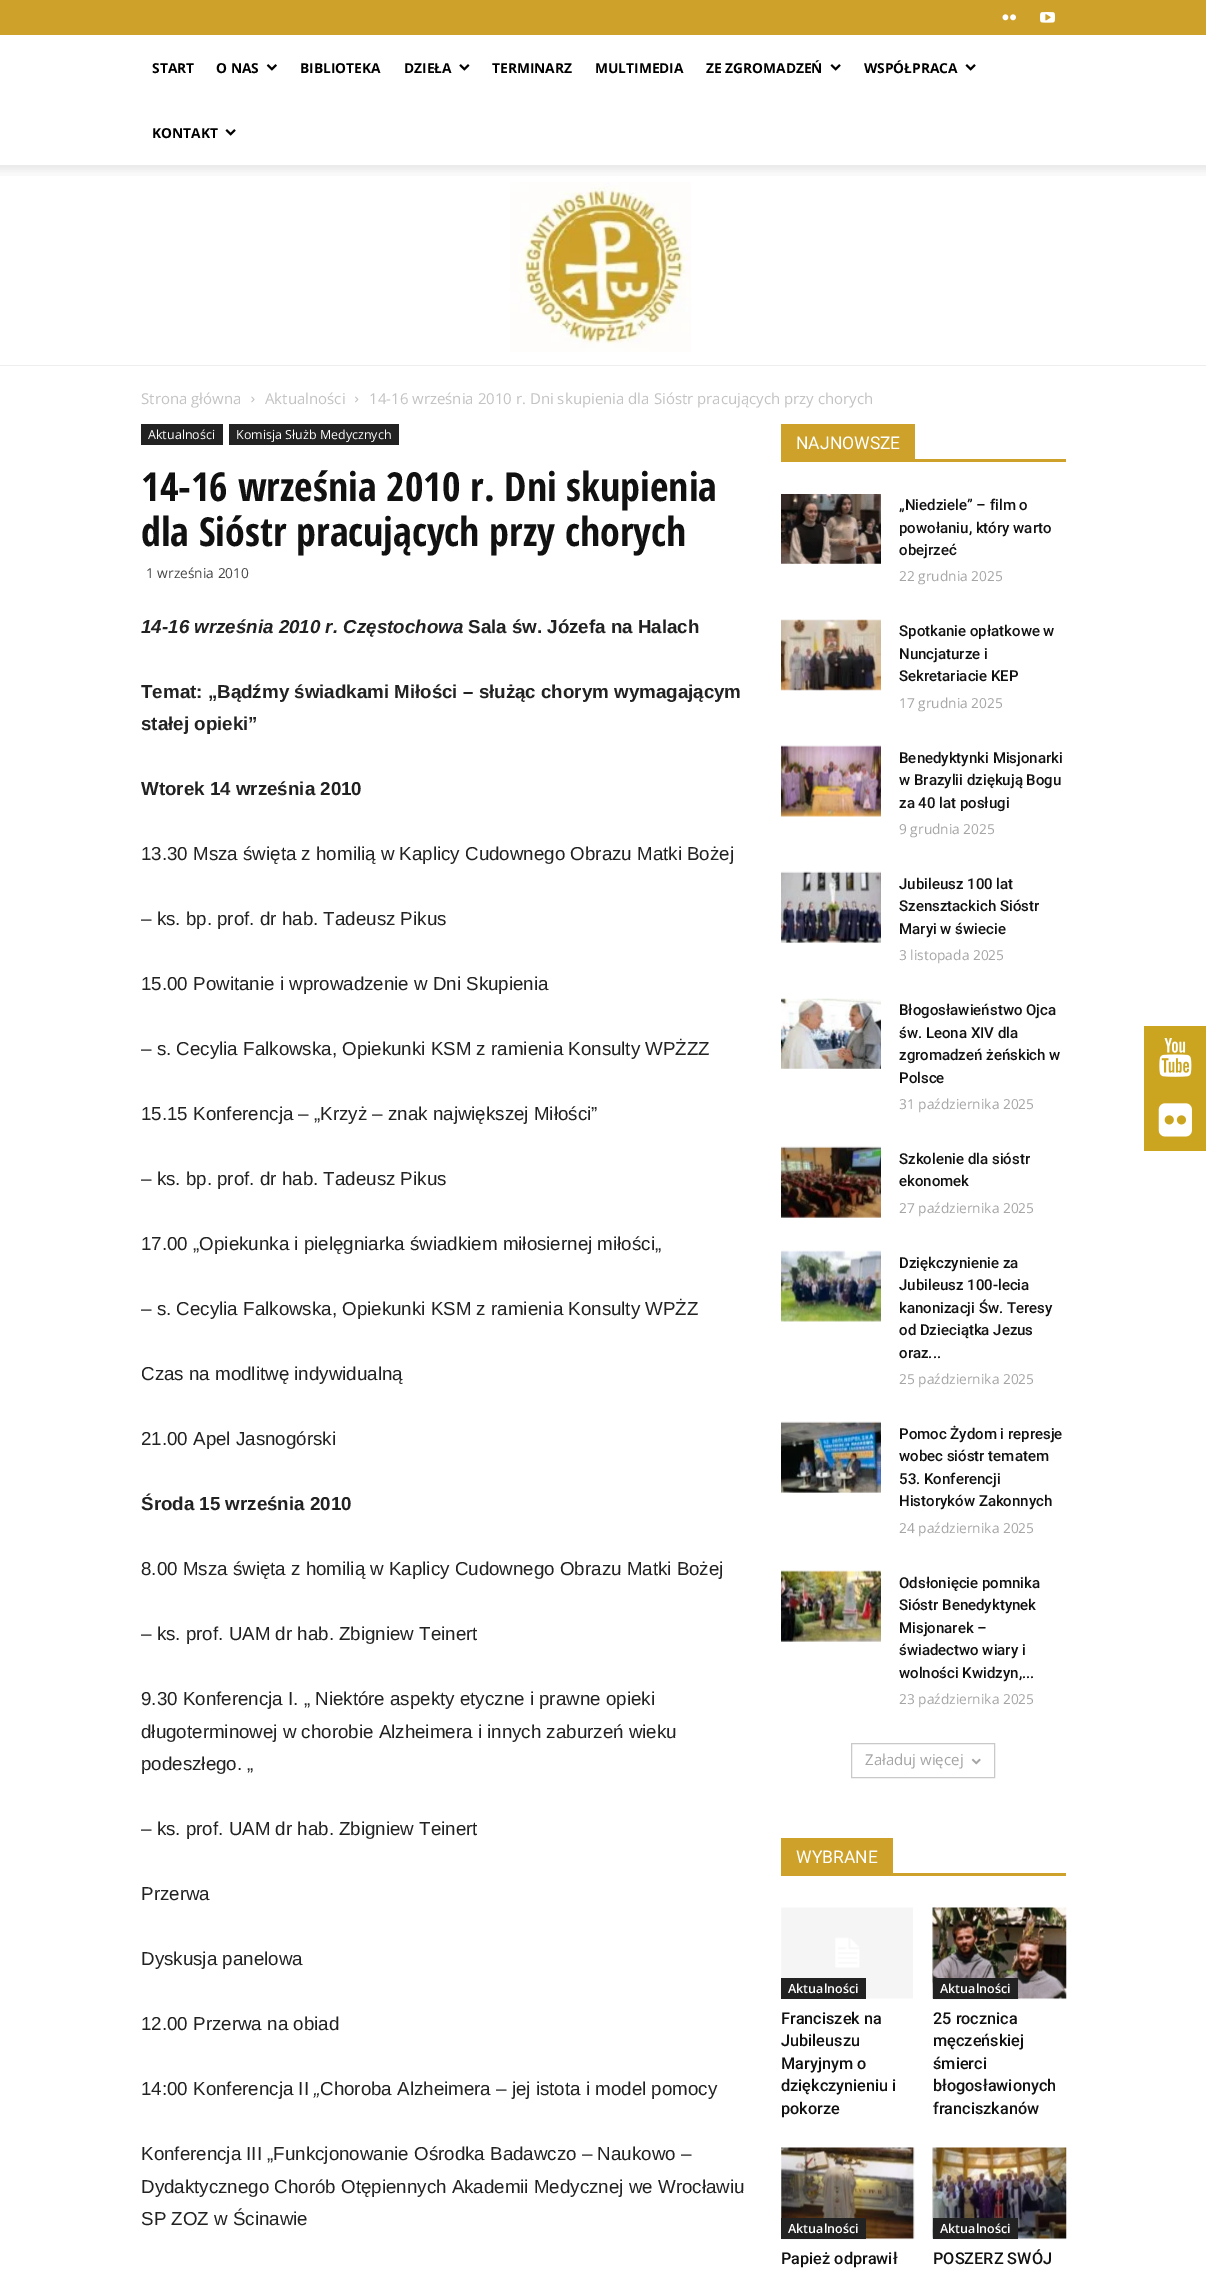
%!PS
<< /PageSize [1206 2280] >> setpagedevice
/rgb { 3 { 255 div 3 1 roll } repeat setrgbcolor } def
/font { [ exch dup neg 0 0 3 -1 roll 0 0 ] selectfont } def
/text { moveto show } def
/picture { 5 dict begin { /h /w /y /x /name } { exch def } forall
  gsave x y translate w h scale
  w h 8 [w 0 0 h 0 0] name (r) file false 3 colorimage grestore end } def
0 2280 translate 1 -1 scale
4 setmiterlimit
255 255 255 rgb
0 0 1206 2280 rectfill
206 161 42 rgb
0 0 1206 35 rectfill
(img_01.rgb) 1002 14 14 7 picture
(img_02.rgb) 1040 12 15 11 picture
(img_03.rgb) 266 64 11 7 picture
(img_04.rgb) 459 64 11 7 picture
(img_05.rgb) 830 64 11 7 picture
(img_05.rgb) 965 64 11 7 picture
(img_05.rgb) 225 129 11 7 picture
(img_06.rgb) 0 165 1206 11 picture
238 238 238 rgb
0 365 1206 1 rectfill
(img_07.rgb) 510 182 181 170 picture
(img_08.rgb) 251 396 4 7 picture
(img_09.rgb) 355 396 4 7 picture
34 34 34 rgb
141 424 82 21 rectfill
229 424 170 21 rectfill
206 161 42 rgb
781 459 285 3 rectfill
781 424 134 35 rectfill
(img_10.rgb) 781 494 100 70 picture
(img_11.rgb) 781 619 100 72 picture
(img_12.rgb) 781 745 100 72 picture
(img_13.rgb) 781 871 100 72 picture
(img_14.rgb) 781 998 100 71 picture
(img_15.rgb) 781 1146 100 72 picture
(img_16.rgb) 781 1250 100 72 picture
(img_17.rgb) 781 1421 100 72 picture
(img_18.rgb) 781 1570 100 72 picture
201 201 201 rgb
851.5 1743.5 143 34 rectstroke
(img_19.rgb) 971 1758 10 7 picture
206 161 42 rgb
781 1873 285 3 rectfill
781 1838 112 35 rectfill
(img_20.rgb) 781 1907 132 92 picture
34 34 34 rgb
781 1978 85 21 rectfill
(img_21.rgb) 932 1907 135 93 picture
933 1978 85 21 rectfill
(img_22.rgb) 781 2147 134 93 picture
781 2218 85 21 rectfill
(img_23.rgb) 932 2147 135 93 picture
933 2218 85 21 rectfill
203 165 32 rgb
1144 1026 62 125 rectfill
(img_24.rgb) 1159 1038 33 39 picture
(img_25.rgb) 1158 1103 34 34 picture
/OpenSans-Bold 13.75 font
0 0 0 rgb
(START) 152 73 text
(O NAS) 216 73 text
(BIBLIOTEKA) 300 73 text
(DZIEŁA) 404 73 text
(TERMINARZ) 492 73 text
(MULTIMEDIA) 595 73 text
(ZE ZGROMADZEŃ) 706 73 text
(WSPÓŁPRACA) 864 73 text
(KONTAKT) 152 138 text
/OpenSans-Regular 15 font
195 195 195 rgb
(Strona główna) 141 404 text
(Aktualności) 265 404 text
(14-16 września 2010 r. Dni skupienia dla Sióstr pracujących przy chorych) 369 404 text
/OpenSans-Regular 12.5 font
255 255 255 rgb
(Aktualności) 148 439 text
(Komisja Służb Medycznych) 236 439 text
/OpenSansCondensed-Bold 40 font
17 17 17 rgb
(14-16 września 2010 r. Dni skupienia) 141 501 text
(dla Sióstr pracujących przy chorych) 141 546 text
/OpenSans-Regular 13.75 font
68 68 68 rgb
(1 września 2010) 146 578 text
/LiberationSans-BoldItalic 18.75 font
34 34 34 rgb
(14-16 września 2010 r. Częstochowa) 141 633 text
/LiberationSans-Bold 18.75 font
(Sala św. Józefa na Halach) 468 633 text
(Temat: „Bądźmy świadkami Miłości – służąc chorym wymagającym) 141 698 text
(stałej opieki”) 141 730 text
(Wtorek 14 września 2010) 141 795 text
/LiberationSans-Regular 18.75 font
(13.30 Msza święta z homilią w Kaplicy Cudownego Obrazu Matki Bożej) 141 860 text
(– ks. bp. prof. dr hab. Tadeusz Pikus) 141 925 text
(15.00 Powitanie i wprowadzenie w Dni Skupienia) 141 990 text
(– s. Cecylia Falkowska, Opiekunki KSM z ramienia Konsulty WPŻZZ) 141 1055 text
(15.15 Konferencja – „Krzyż – znak największej Miłości”) 141 1120 text
(– ks. bp. prof. dr hab. Tadeusz Pikus) 141 1185 text
(17.00 „Opiekunka i pielęgniarka świadkiem miłosiernej miłości„) 141 1250 text
(– s. Cecylia Falkowska, Opiekunki KSM z ramienia Konsulty WPŻZ) 141 1315 text
(Czas na modlitwę indywidualną) 141 1380 text
(21.00 Apel Jasnogórski) 141 1445 text
/LiberationSans-Bold 18.75 font
(Środa 15 września 2010) 141 1510 text
/LiberationSans-Regular 18.75 font
(8.00 Msza święta z homilią w Kaplicy Cudownego Obrazu Matki Bożej) 141 1575 text
(– ks. prof. UAM dr hab. Zbigniew Teinert) 141 1640 text
(9.30 Konferencja I. „ Niektóre aspekty etyczne i prawne opieki) 141 1705 text
(długoterminowej w chorobie Alzheimera i innych zaburzeń wieku) 141 1738 text
(podeszłego. „) 141 1770 text
(– ks. prof. UAM dr hab. Zbigniew Teinert) 141 1835 text
(Przerwa) 141 1900 text
(Dyskusja panelowa) 141 1965 text
(12.00 Przerwa na obiad) 141 2030 text
(14:00 Konferencja II) 141 2095 text
/LiberationSans-Italic 18.75 font
(„) 314 2095 text
/LiberationSans-Regular 18.75 font
(Choroba Alzheimera – jej istota i model pomocy) 320 2095 text
(Konferencja III „Funkcjonowanie Ośrodka Badawczo – Naukowo –) 141 2160 text
(Dydaktycznego Chorób Otępiennych Akademii Medycznej we Wrocławiu) 141 2193 text
(SP ZOZ w Ścinawie) 141 2225 text
/Roboto-Regular 17.5 font
255 255 255 rgb
(NAJNOWSZE) 796 449 text
/Roboto-Medium 15 font
17 17 17 rgb
(„Niedziele” – film o) 899 510 text
(powołaniu, który warto) 899 533 text
(obejrzeć) 899 555 text
/OpenSans-Regular 13.75 font
165 165 165 rgb
(22 grudnia 2025) 899 581 text
/Roboto-Medium 15 font
17 17 17 rgb
(Spotkanie opłatkowe w) 899 636 text
(Nuncjaturze i) 899 659 text
(Sekretariacie KEP) 899 681 text
/OpenSans-Regular 13.75 font
165 165 165 rgb
(17 grudnia 2025) 899 708 text
/Roboto-Medium 15 font
17 17 17 rgb
(Benedyktynki Misjonarki) 899 763 text
(w Brazylii dziękują Bogu) 899 785 text
(za 40 lat posługi) 899 808 text
/OpenSans-Regular 13.75 font
165 165 165 rgb
(9 grudnia 2025) 899 834 text
/Roboto-Medium 15 font
17 17 17 rgb
(Jubileusz 100 lat) 899 889 text
(Szensztackich Sióstr) 899 911 text
(Maryi w świecie) 899 934 text
/OpenSans-Regular 13.75 font
165 165 165 rgb
(3 listopada 2025) 899 960 text
/Roboto-Medium 15 font
17 17 17 rgb
(Błogosławieństwo Ojca) 899 1015 text
(św. Leona XIV dla) 899 1038 text
(zgromadzeń żeńskich w) 899 1060 text
(Polsce) 899 1083 text
/OpenSans-Regular 13.75 font
165 165 165 rgb
(31 października 2025) 899 1109 text
/Roboto-Medium 15 font
17 17 17 rgb
(Szkolenie dla sióstr) 899 1164 text
(ekonomek) 899 1186 text
/OpenSans-Regular 13.75 font
165 165 165 rgb
(27 października 2025) 899 1213 text
/Roboto-Medium 15 font
17 17 17 rgb
(Dziękczynienie za) 899 1268 text
(Jubileusz 100-lecia) 899 1290 text
(kanonizacji Św. Teresy) 899 1313 text
(od Dzieciątka Jezus) 899 1335 text
(oraz...) 899 1358 text
/OpenSans-Regular 13.75 font
165 165 165 rgb
(25 października 2025) 899 1384 text
/Roboto-Medium 15 font
17 17 17 rgb
(Pomoc Żydom i represje) 899 1439 text
(wobec sióstr tematem) 899 1461 text
(53. Konferencji) 899 1484 text
(Historyków Zakonnych) 899 1506 text
/OpenSans-Regular 13.75 font
165 165 165 rgb
(24 października 2025) 899 1533 text
/Roboto-Medium 15 font
17 17 17 rgb
(Odsłonięcie pomnika) 899 1588 text
(Sióstr Benedyktynek) 899 1610 text
(Misjonarek –) 899 1633 text
(świadectwo wiary i) 899 1655 text
(wolności Kwidzyn,...) 899 1678 text
/OpenSans-Regular 13.75 font
165 165 165 rgb
(23 października 2025) 899 1704 text
/OpenSans-Regular 15 font
(Załaduj więcej) 865 1765 text
/Roboto-Regular 17.5 font
255 255 255 rgb
(WYBRANE) 796 1863 text
/OpenSans-SemiBold 12.5 font
(Aktualności) 788 1993 text
/Roboto-Medium 16.25 font
17 17 17 rgb
(Franciszek na) 781 2024 text
(Jubileuszu) 781 2046 text
(Maryjnym o) 781 2069 text
(dziękczynieniu i) 781 2091 text
(pokorze) 781 2114 text
/OpenSans-SemiBold 12.5 font
255 255 255 rgb
(Aktualności) 940 1993 text
/Roboto-Medium 16.25 font
17 17 17 rgb
(25 rocznica) 933 2024 text
(męczeńskiej) 933 2046 text
(śmierci) 933 2069 text
(błogosławionych) 933 2091 text
(franciszkanów) 933 2114 text
/OpenSans-SemiBold 12.5 font
255 255 255 rgb
(Aktualności) 788 2233 text
/Roboto-Medium 16.25 font
17 17 17 rgb
(Papież odprawił) 781 2264 text
/OpenSans-SemiBold 12.5 font
255 255 255 rgb
(Aktualności) 940 2233 text
/Roboto-Medium 16.25 font
17 17 17 rgb
(POSZERZ SWÓJ) 933 2264 text
showpage
